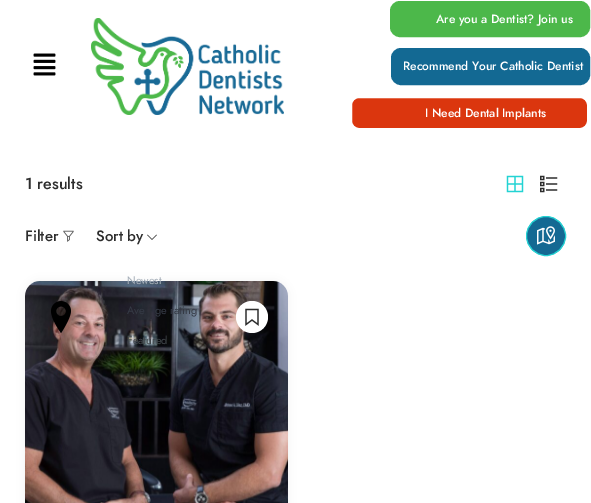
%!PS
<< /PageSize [591 503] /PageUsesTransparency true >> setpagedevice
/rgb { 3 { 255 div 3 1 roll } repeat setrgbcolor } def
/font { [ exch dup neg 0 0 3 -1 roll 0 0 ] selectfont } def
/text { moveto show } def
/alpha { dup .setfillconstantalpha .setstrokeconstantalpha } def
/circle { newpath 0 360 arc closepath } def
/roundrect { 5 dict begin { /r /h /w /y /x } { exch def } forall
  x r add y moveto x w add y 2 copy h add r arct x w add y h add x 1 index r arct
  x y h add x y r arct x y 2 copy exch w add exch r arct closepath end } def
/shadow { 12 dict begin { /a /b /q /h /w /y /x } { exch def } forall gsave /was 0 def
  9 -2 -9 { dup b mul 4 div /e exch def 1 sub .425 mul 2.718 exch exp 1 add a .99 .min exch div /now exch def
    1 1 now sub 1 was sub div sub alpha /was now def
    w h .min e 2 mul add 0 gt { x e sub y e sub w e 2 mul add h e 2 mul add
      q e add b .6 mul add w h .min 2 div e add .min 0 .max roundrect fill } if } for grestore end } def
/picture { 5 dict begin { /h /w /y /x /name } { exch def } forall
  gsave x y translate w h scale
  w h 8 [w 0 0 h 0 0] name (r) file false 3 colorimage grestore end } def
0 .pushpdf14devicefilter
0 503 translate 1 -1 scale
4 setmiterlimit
255 255 255 rgb
0 0 591 503 rectfill
(img_01.rgb) 33 53 23 23 picture
(img_02.rgb) 91 18 193 97 picture
76 184 74 rgb
391.5 2.5 197 33 8.5 roundrect gsave fill grestore
3 setlinewidth
stroke
19 105 147 rgb
392.5 49.5 196 34 8.5 roundrect gsave fill grestore
stroke
219 54 14 rgb
350.5 96.5 238 33 8.5 roundrect gsave fill grestore
255 255 255 rgb
stroke
(img_03.rgb) 506 175 18 18 picture
(img_04.rgb) 540 175 18 18 picture
(img_05.rgb) 63 230 11 12 picture
(img_06.rgb) 147 234 10 6 picture
20 105 147 rgb
546 236 19.5 circle gsave fill grestore
35 211 211 rgb
1 setlinewidth
stroke
(img_07.rgb) 537 226 18 19 picture
0 0 0 rgb
25 281 263 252 15 5 0.05 shadow
(img_08.rgb) 25 281 263 222 picture
(img_09.rgb) 51 301 20 32 picture
255 255 255 rgb
252 317 16 circle fill
(img_10.rgb) 245 308 14 18 picture
/Jost-Medium 12 font
(Are you a Dentist? Join us) 436 23 text
(Recommend Your Catholic Dentist) 403 70 text
(I Need Dental Implants) 425 117 text
/Jost-Medium 16 font
45 45 45 rgb
(1 results) 25 189 text
/Jost-Medium 15 font
(Filter) 25 241 text
(Sort by) 96 241 text
/Jost-Regular 11 font
167 176 186 rgb
(Newest) 127 284 text
53 58 69 rgb
(Ave) 127 314 text
(ge rating) 155 314 text
65 71 75 rgb
(Featured) 127 344 text
.poppdf14devicefilter showpage
